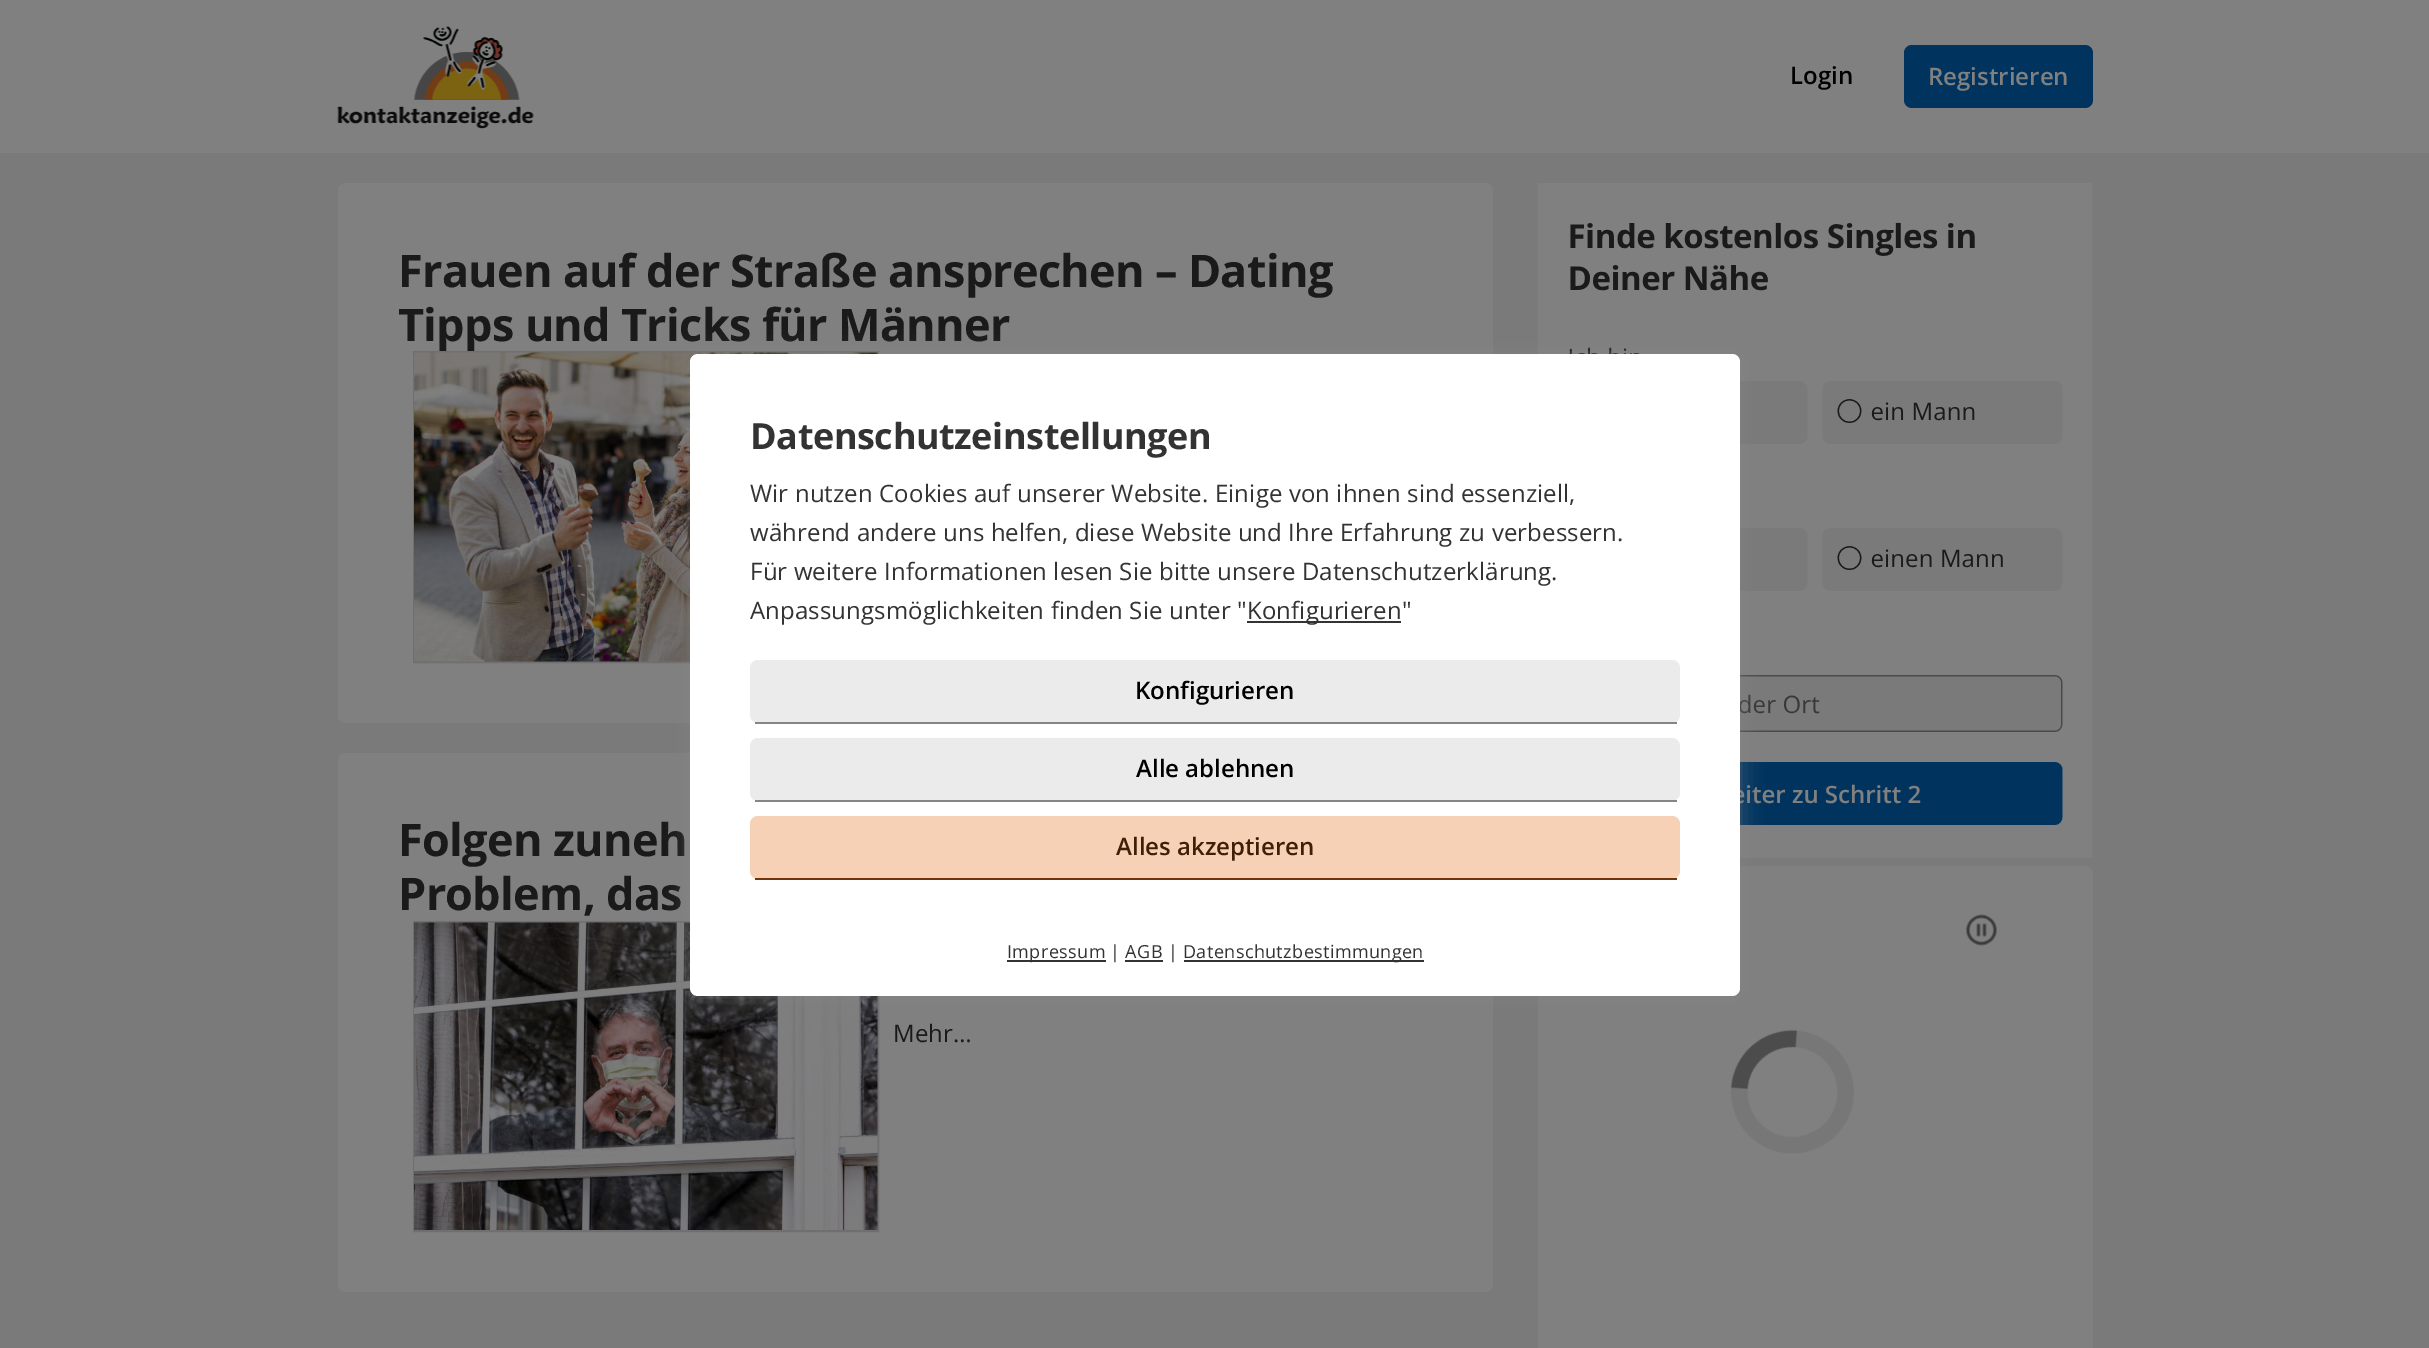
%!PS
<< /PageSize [2429 1348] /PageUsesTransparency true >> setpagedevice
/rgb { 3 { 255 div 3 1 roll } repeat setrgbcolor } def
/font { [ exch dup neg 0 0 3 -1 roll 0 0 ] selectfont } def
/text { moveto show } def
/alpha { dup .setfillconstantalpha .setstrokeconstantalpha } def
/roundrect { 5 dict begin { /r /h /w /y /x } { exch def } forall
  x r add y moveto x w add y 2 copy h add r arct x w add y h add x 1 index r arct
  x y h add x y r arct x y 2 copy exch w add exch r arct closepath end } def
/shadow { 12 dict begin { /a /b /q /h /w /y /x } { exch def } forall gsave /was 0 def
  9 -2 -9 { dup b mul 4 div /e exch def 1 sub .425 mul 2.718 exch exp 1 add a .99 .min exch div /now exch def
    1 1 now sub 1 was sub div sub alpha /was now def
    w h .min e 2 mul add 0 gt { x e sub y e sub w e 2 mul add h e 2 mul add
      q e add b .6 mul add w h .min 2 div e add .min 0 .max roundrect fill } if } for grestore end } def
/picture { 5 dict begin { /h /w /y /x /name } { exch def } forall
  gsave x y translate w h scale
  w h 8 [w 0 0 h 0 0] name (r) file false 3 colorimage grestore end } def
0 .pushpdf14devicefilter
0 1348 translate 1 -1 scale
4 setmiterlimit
122 122 122 rgb
0 0 2429 1348 rectfill
128 128 128 rgb
0 0 2429 153 rectfill
(img_01.rgb) 337 26 197 103 picture
0 52 94 rgb
1904 45 189 63 8 roundrect fill
128 128 128 rgb
338 183 1155 540 8 roundrect fill
338 753 1155 539 8 roundrect fill
111 111 111 rgb
2 setlinewidth
414 922 464 309 rectstroke
(img_03.rgb) 414 922 464 308 picture
(img_04.rgb) 1537 183 556 675 picture
128 128 128 rgb
1538 866 555 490 8 roundrect fill
(img_05.rgb) 1730 914 267 240 picture
/OpenSans-SemiBold 24 font
0 0 0 rgb
(Login) 1790 84 text
128 128 128 rgb
(Registrieren) 1928 85 text
/OpenSans-Bold 45 font
26 26 26 rgb
398 287 moveto -0.7 0 (Frauen auf der Straße ansprechen – Dating) ashow
398 341 moveto -0.7 0 (Tipps und Tricks für Männer) ashow
111 111 111 rgb
414 352 464 310 rectstroke
(img_02.rgb) 414 352 464 310 picture
26 26 26 rgb
398 856 moveto -0.7 0 (Folgen zuneh) ashow
398 910 moveto -0.7 0 (Problem, das) ashow
/OpenSans-Regular 24 font
(Mehr…) 893 1042 text
136 136 136 rgb
690 354 1050 642 8 11 0.5 shadow
255 255 255 rgb
690 354 1050 642 8 roundrect fill
/OpenSans-Bold 36 font
51 51 51 rgb
750 449 moveto -0.4 0 (Datenschutzeinstellungen) ashow
/OpenSans-Regular 24 font
750 502 moveto 0.12 0 (Wir nutzen Cookies auf unserer Website. Einige von ihnen sind essenziell,) ashow
750 541 moveto 0.12 0 (während andere uns helfen, diese Website und Ihre Erfahrung zu verbessern.) ashow
750 580 moveto 0.12 0 (Für weitere Informationen lesen Sie bitte unsere Datenschutzerklärung.) ashow
750 619 moveto 0.12 0 (Anpassungsmöglichkeiten finden Sie unter ") ashow
1247 621 154 2 rectfill
1247 619 moveto 0.12 0 (Konfigurieren) ashow
1402 619 moveto 0.12 0 (") ashow
235 235 235 rgb
750 660 930 63 8 roundrect fill
133 133 133 rgb
755 722 922 2 rectfill
/OpenSans-SemiBold 24 font
0 0 0 rgb
(Konfigurieren) 1135 699 text
235 235 235 rgb
750 738 930 63 8 roundrect fill
133 133 133 rgb
755 800 922 2 rectfill
0 0 0 rgb
(Alle ablehnen) 1136 777 text
247 209 182 rgb
750 816 930 63 8 roundrect fill
110 53 12 rgb
755 878 922 2 rectfill
64 31 7 rgb
(Alles akzeptieren) 1116 855 text
51 51 51 rgb
1007 960 99 2 rectfill
/OpenSans-Regular 18 font
1007 958 moveto 0.4 0 (Impressum) ashow
1110 958 moveto 0.4 0 (| AGB) ashow
1168 958 moveto 0.4 0 (|) ashow
1184 960 240 2 rectfill
1183 958 moveto 0.4 0 (Datenschutzbestimmungen) ashow
1125 960 38 2 rectfill
.poppdf14devicefilter showpage
